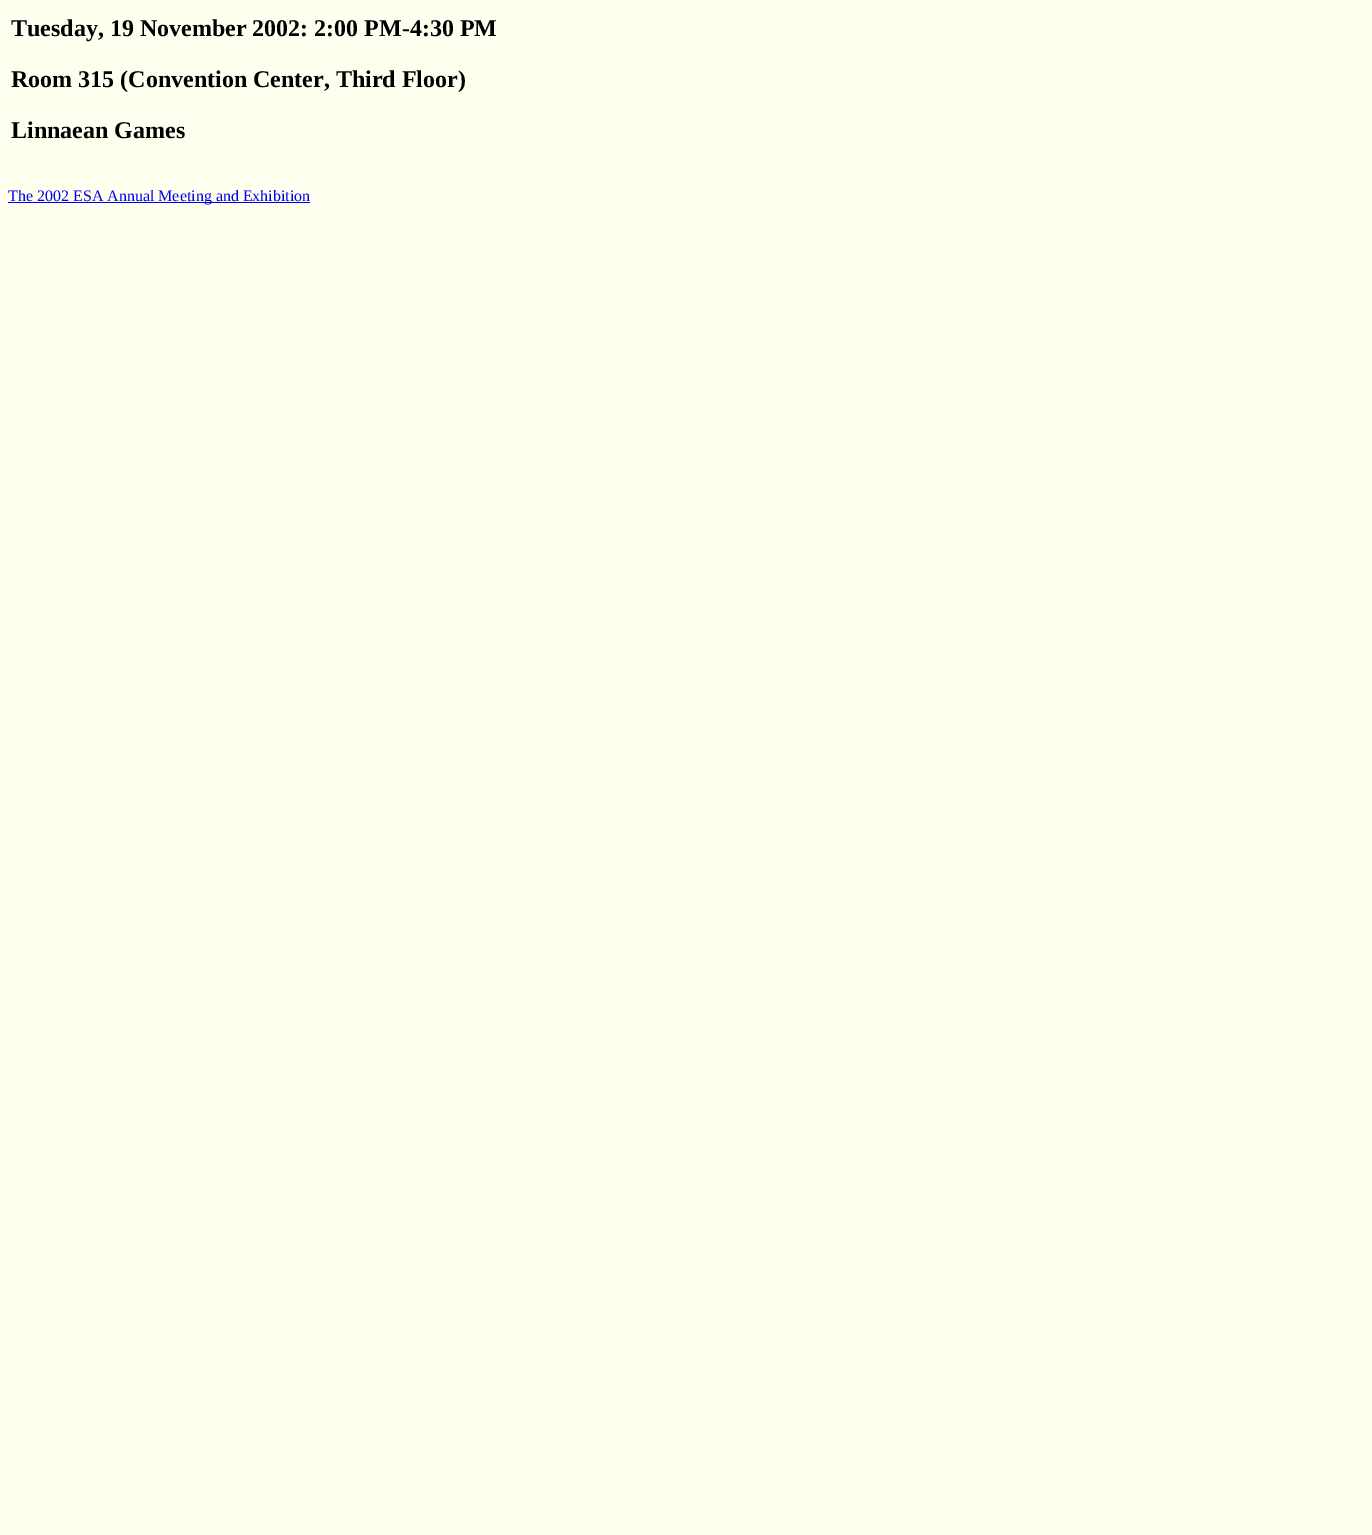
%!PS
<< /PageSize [1372 1535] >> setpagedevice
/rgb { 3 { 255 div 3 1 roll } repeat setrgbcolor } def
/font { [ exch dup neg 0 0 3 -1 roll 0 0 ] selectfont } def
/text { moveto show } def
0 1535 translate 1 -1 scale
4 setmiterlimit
255 255 240 rgb
0 0 1372 1535 rectfill
0 0 238 rgb
8 202 302 1 rectfill
/LiberationSerif-Bold 24 font
0 0 0 rgb
(Tuesday, 19 November 2002: 2:00 PM-4:30 PM) 11 36 text
(Room 315 \(Convention Center, Third Floor\)) 11 87 text
(Linnaean Games) 11 138 text
/LiberationSerif-Regular 16 font
0 0 238 rgb
(The 2002 ESA Annual Meeting and Exhibition) 8 201 text
showpage
